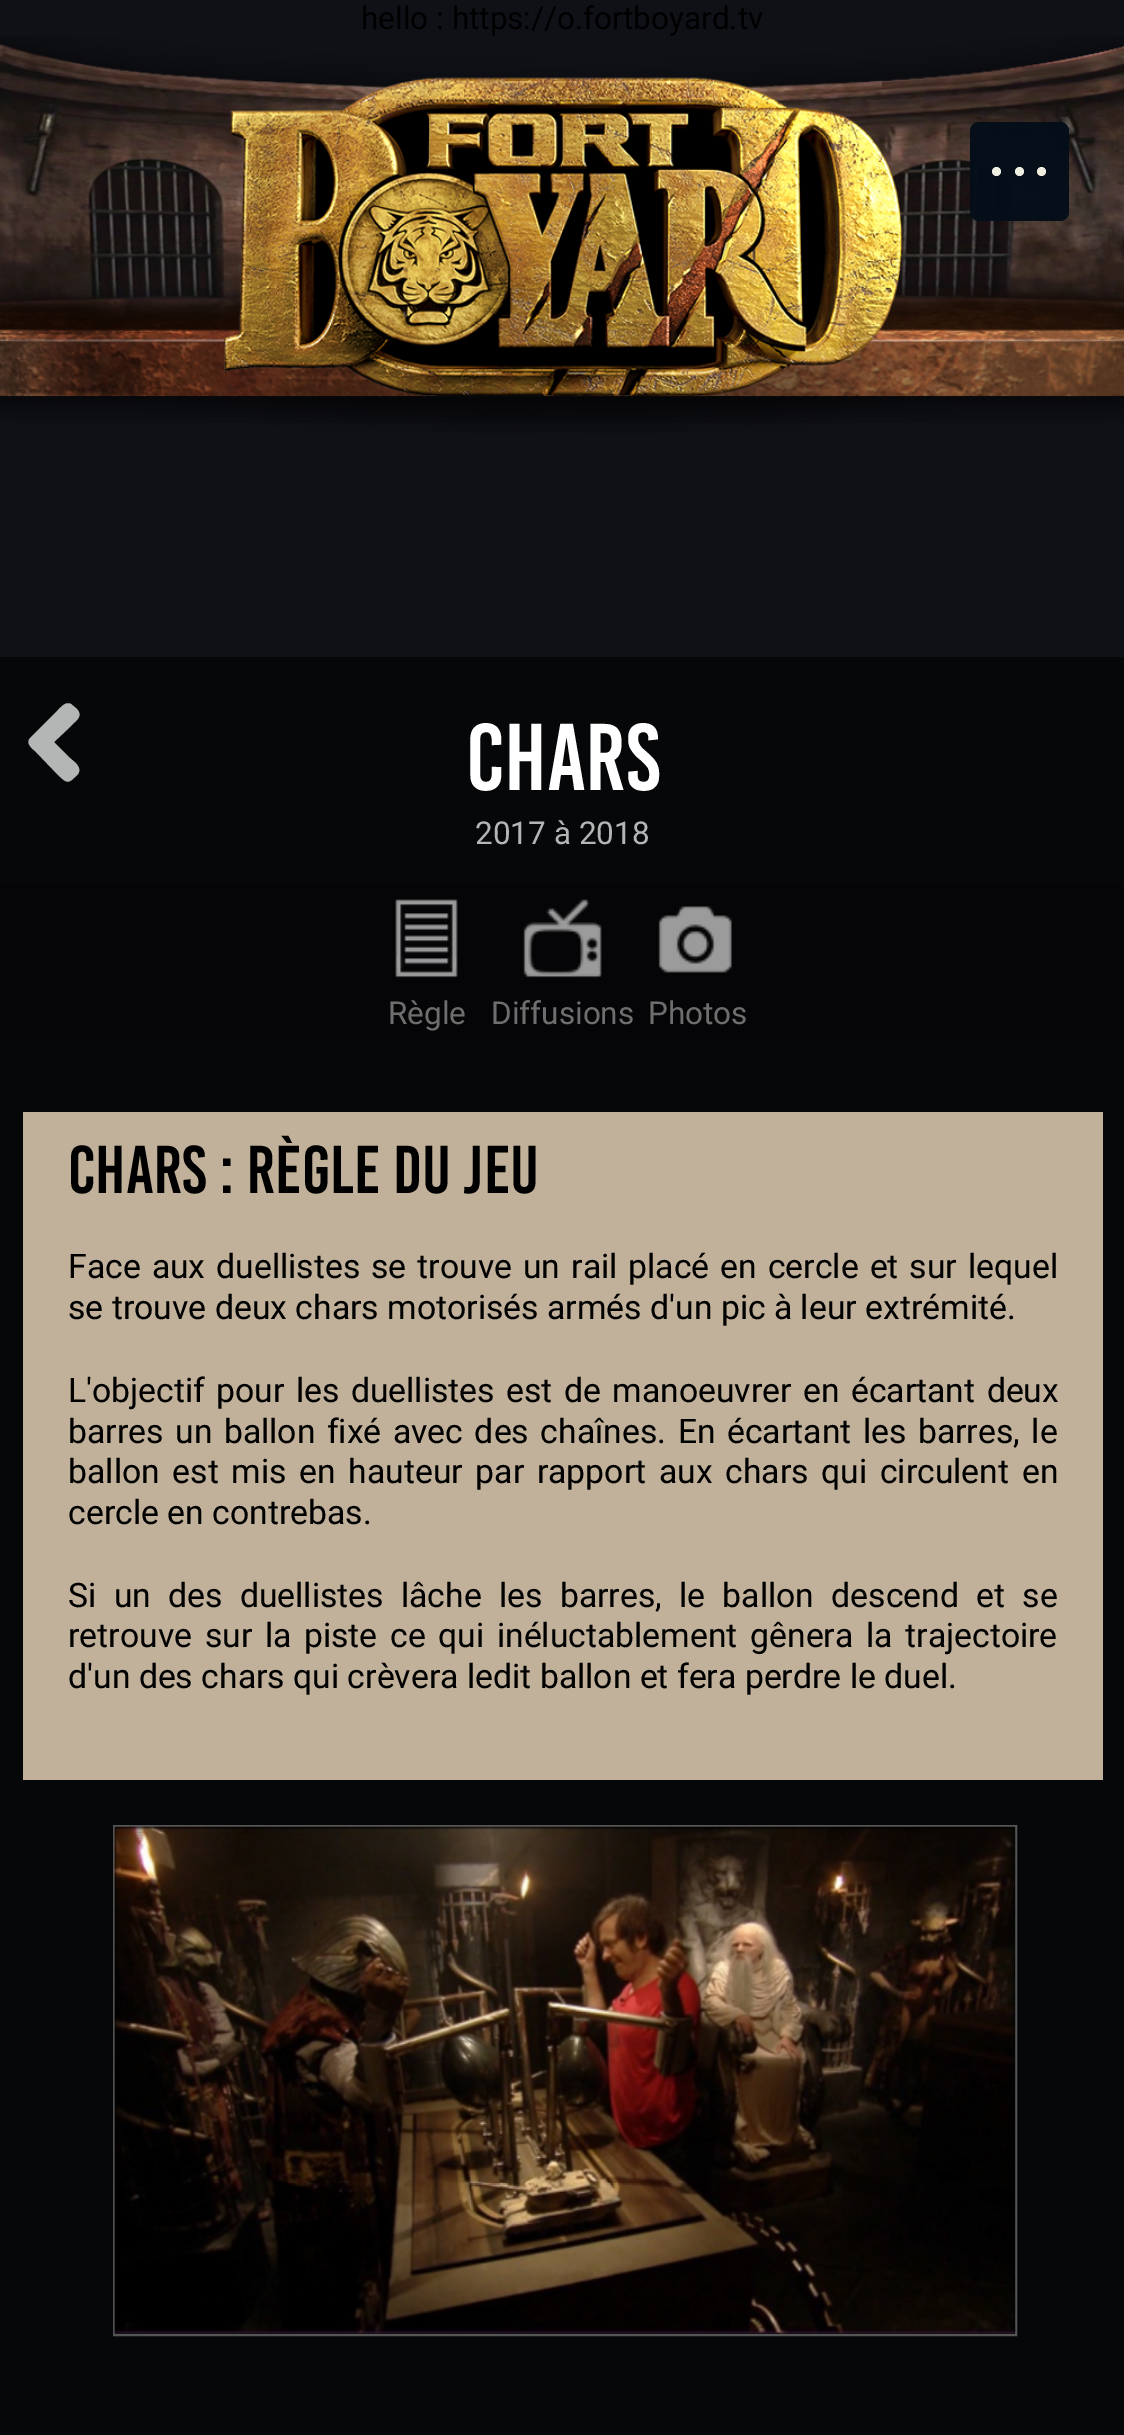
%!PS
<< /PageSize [1124 2435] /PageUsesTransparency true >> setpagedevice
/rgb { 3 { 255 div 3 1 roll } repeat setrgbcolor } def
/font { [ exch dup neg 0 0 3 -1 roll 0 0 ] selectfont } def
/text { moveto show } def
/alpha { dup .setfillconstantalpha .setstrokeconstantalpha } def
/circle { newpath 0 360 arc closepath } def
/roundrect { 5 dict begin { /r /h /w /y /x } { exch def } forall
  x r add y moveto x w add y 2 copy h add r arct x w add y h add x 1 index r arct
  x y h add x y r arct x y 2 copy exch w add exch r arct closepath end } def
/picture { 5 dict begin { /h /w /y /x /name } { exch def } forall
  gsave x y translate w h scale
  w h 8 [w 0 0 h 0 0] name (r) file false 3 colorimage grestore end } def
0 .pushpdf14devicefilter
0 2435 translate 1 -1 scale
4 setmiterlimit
16 17 23 rgb
0 0 1124 2435 rectfill
(img_01.rgb) 0 36 1124 387 picture
(img_03.rgb) 0 329 1124 68 picture
(img_02.rgb) 223 77 680 356 picture
0.96 alpha
3 13 24 rgb
970 122 99 99 9 roundrect fill
1 alpha
240 238 225 rgb
1019.5 171.5 4.5 circle fill
996.5 171.5 4.5 circle fill
1041.5 171.5 4.5 circle fill
6 7 9 rgb
0 657 1124 225 rectfill
180 181 181 rgb
30 738 moveto 28 -28 rlineto 3 -3 8 -9 13 -6 rcurveto 6 5 rlineto 7 8 -2 12 -7 18 rcurveto -16 15 rlineto 16 16 rlineto 3 3 11 8 9 14 rcurveto -1 3 -3 4 -5 6 rcurveto -7 7 -9 3 -16 -3 rcurveto -22 -23 rlineto -3 -3 -11 -8 -6 -14 rcurveto closepath fill
0.7 alpha
0 0 0 rgb
0 882 1124 158 rectfill
1 alpha
(img_04.rgb) 395 899 63 79 picture
(img_05.rgb) 523 899 79 79 picture
(img_06.rgb) 658 906 74 67 picture
0.6 alpha
0 1040 1124 1395 rectfill
1 alpha
193 177 154 rgb
23 1112 1080 668 rectfill
85 85 85 rgb
2 setlinewidth
114 1826 902 509 rectstroke
(img_07.rgb) 113 1826 903 508 picture
/Roboto-Regular 31.5 font
0 0 0 rgb
(hello : https://o.fortboyard.tv) 361 29 text
/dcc-Regular 94.5 font
255 255 255 rgb
(Chars) 466 790 text
/Roboto-Regular 31.5 font
180 181 181 rgb
(2017 à 2018) 475 844 text
110 110 111 rgb
(Règle) 388 1024 text
(Diffusions) 491 1024 text
(Photos) 648 1024 text
/dcc-Regular 67.5 font
0 0 0 rgb
(Chars : Règle du jeu) 68 1193 text
/Roboto-Regular 33.75 font
68 1278 moveto 2.6 0 32 (Face aux duellistes se trouve un rail placé en cercle et sur lequel) widthshow
(se trouve deux chars motorisés armés d'un pic à leur extrémité.) 68 1319 text
68 1402 moveto 3 0 32 (L'objectif pour les duellistes est de manoeuvrer en écartant deux) widthshow
68 1443 moveto 3.1 0 32 (barres un ballon fixé avec des chaînes. En écartant les barres, le) widthshow
68 1483 moveto 4.25 0 32 (ballon est mis en hauteur par rapport aux chars qui circulent en) widthshow
(cercle en contrebas.) 68 1524 text
68 1607 moveto 8.9 0 32 (Si un des duellistes lâche les barres, le ballon descend et se) widthshow
68 1647 moveto 4.25 0 32 (retrouve sur la piste ce qui inéluctablement gênera la trajectoire) widthshow
(d'un des chars qui crèvera ledit ballon et fera perdre le duel.) 68 1688 text
.poppdf14devicefilter showpage
